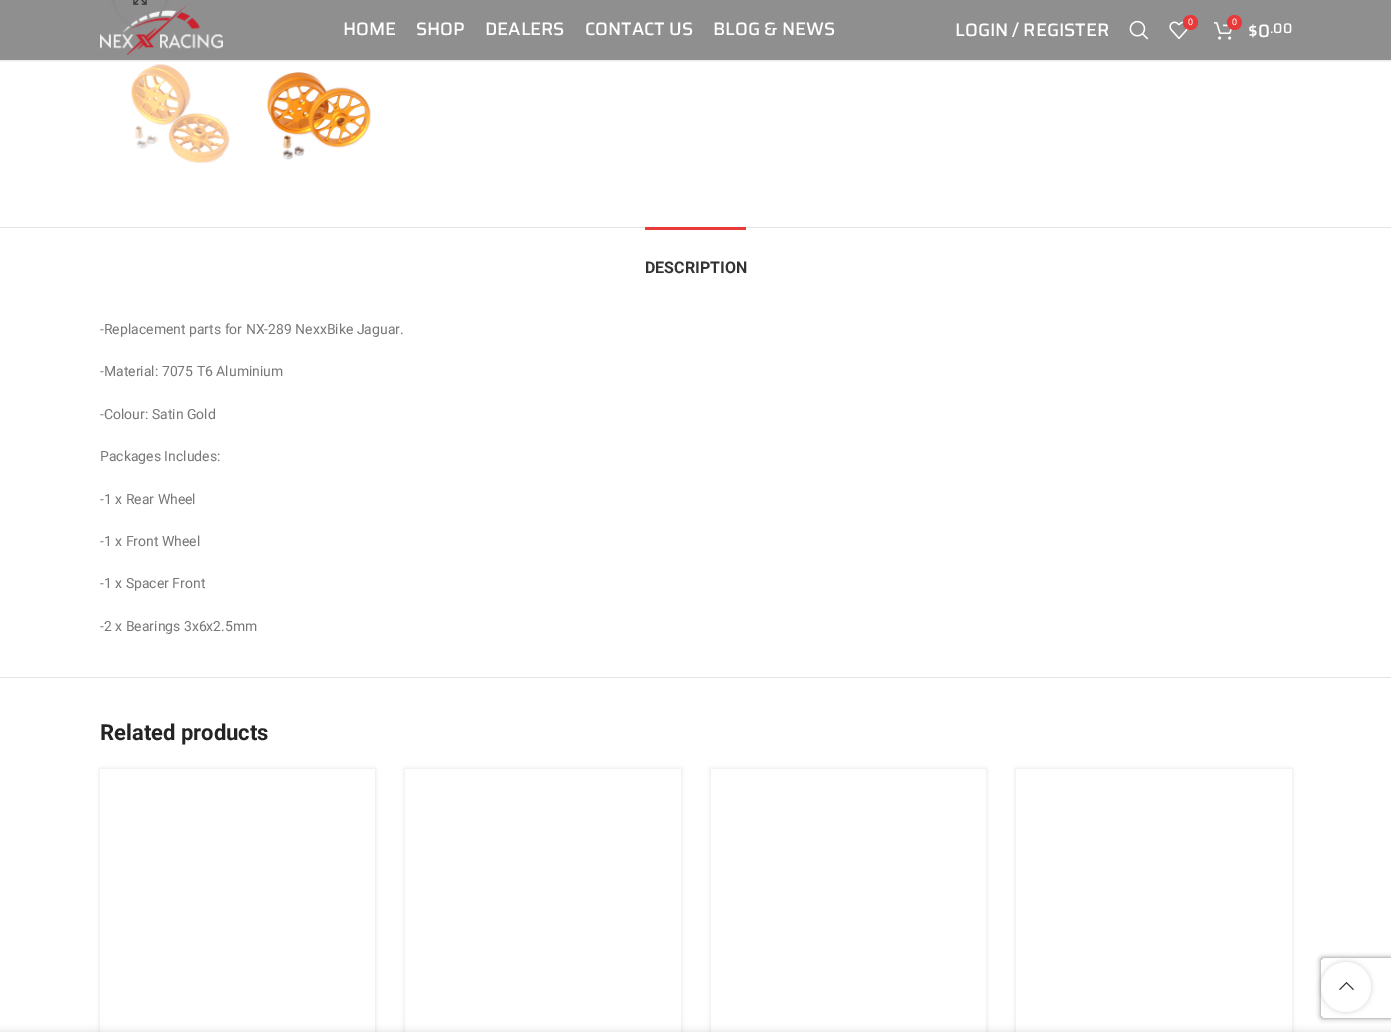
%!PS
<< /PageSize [1391 1032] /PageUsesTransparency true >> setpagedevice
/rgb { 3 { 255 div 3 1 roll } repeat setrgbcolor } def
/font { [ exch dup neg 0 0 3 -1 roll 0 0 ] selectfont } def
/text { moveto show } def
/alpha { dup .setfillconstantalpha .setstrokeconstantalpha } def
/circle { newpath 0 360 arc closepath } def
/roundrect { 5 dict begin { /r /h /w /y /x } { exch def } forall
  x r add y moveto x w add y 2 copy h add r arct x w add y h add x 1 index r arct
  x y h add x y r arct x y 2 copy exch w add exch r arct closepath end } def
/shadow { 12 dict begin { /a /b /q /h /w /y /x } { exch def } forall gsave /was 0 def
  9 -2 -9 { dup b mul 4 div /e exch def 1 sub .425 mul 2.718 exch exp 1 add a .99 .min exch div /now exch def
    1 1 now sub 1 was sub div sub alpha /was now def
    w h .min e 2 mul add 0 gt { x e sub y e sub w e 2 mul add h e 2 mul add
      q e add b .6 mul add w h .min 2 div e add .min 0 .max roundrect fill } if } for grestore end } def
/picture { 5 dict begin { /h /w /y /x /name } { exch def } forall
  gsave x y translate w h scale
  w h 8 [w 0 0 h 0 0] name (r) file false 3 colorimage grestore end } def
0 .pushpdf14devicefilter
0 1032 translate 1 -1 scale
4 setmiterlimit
255 255 255 rgb
0 0 1391 1032 rectfill
143 143 143 rgb
0 0 1391 60 rectfill
0 0 0 rgb
115 -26 50 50 25 2.5 0.08 shadow
143 143 143 rgb
115 -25 50 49 25 roundrect fill
(img_05.rgb) 133 0 14 5 picture
(img_06.rgb) 131 64 99 100 picture
gsave
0 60 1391 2 rectclip
0 0 0 rgb
0 1 1391 60 0 1.5 0.1 shadow
grestore
(img_01.rgb) 100 5 123 50 picture
(img_02.rgb) 1129 20 20 20 picture
(img_03.rgb) 1169 21 20 18 picture
232 58 58 rgb
1190.5 22.5 7.5 circle fill
(img_04.rgb) 1214 22 19 18 picture
1234.5 22.5 7.5 circle fill
(img_07.rgb) 267 72 104 88 picture
228 228 228 rgb
0 227 1391 1 rectfill
0 677 1391 1 rectfill
232 58 58 rgb
645 227 101 3 rectfill
gsave
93 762 moveto 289 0 rlineto 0 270 rlineto -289 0 rlineto closepath 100 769 moveto 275 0 rlineto 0 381 rlineto -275 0 rlineto closepath eoclip newpath
0 0 0 rgb
100 769 275 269 0 2 0.12 shadow
grestore
gsave
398 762 moveto 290 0 rlineto 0 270 rlineto -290 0 rlineto closepath 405 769 moveto 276 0 rlineto 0 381 rlineto -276 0 rlineto closepath eoclip newpath
0 0 0 rgb
405 769 276 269 0 2 0.12 shadow
grestore
gsave
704 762 moveto 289 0 rlineto 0 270 rlineto -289 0 rlineto closepath 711 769 moveto 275 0 rlineto 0 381 rlineto -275 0 rlineto closepath eoclip newpath
0 0 0 rgb
711 769 275 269 0 2 0.12 shadow
grestore
gsave
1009 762 moveto 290 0 rlineto 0 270 rlineto -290 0 rlineto closepath 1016 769 moveto 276 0 rlineto 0 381 rlineto -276 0 rlineto closepath eoclip newpath
0 0 0 rgb
1016 769 276 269 0 2 0.12 shadow
grestore
gsave
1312 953 moveto 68 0 rlineto 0 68 rlineto -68 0 rlineto closepath 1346 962 moveto 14 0 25 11 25 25 rcurveto 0 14 -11 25 -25 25 rcurveto -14 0 -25 -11 -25 -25 rcurveto 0 -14 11 -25 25 -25 rcurveto closepath eoclip newpath
0 0 0 rgb
1321 962 50 50 25 2.5 0.17 shadow
grestore
0.9 alpha
255 255 255 rgb
1346 987 25 circle fill
1 alpha
(img_08.rgb) 1339 981 15 9 picture
gsave
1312 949 moveto 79 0 rlineto 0 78 rlineto -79 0 rlineto closepath 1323 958 moveto 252 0 rlineto 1 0 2 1 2 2 rcurveto 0 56 rlineto 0 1 -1 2 -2 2 rcurveto -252 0 rlineto -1 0 -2 -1 -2 -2 rcurveto 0 -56 rlineto 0 -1 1 -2 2 -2 rcurveto closepath eoclip newpath
128 128 128 rgb
1321 958 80 60 2 2.5 1 shadow
grestore
0 0 0 rgb
0 1032 1391 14 0 4.5 0.14 shadow
/Saira-Medium 18 font
255 255 255 rgb
(HOME) 343 35 text
(SHOP) 416 35 text
(DEALERS) 485 35 text
(CONTACT US) 585 35 text
(BLOG & NEWS) 713 35 text
(LOGIN / REGISTER) 955 36 text
/Roboto-Regular 9 font
(0) 1188 25 text
(0) 1232 25 text
/Saira-Medium 18 font
($0) 1248 37 text
/Saira-Medium 14 font
(.00) 1270 33 text
/Roboto-Bold 16 font
51 51 51 rgb
(DESCRIPTION) 645 273 text
/Roboto-Regular 14 font
119 119 119 rgb
(-Replacement parts for NX-289 NexxBike Jaguar.) 100 334 text
(-Material: 7075 T6 Aluminium) 100 376 text
(-Colour: Satin Gold) 100 419 text
(Packages Includes:) 100 461 text
(-1 x Rear Wheel) 100 504 text
(-1 x Front Wheel) 100 546 text
(-1 x Spacer Front) 100 588 text
(-2 x Bearings 3x6x2.5mm) 100 631 text
/Roboto-Bold 22 font
36 36 36 rgb
(Related products) 100 740 text
.poppdf14devicefilter showpage
